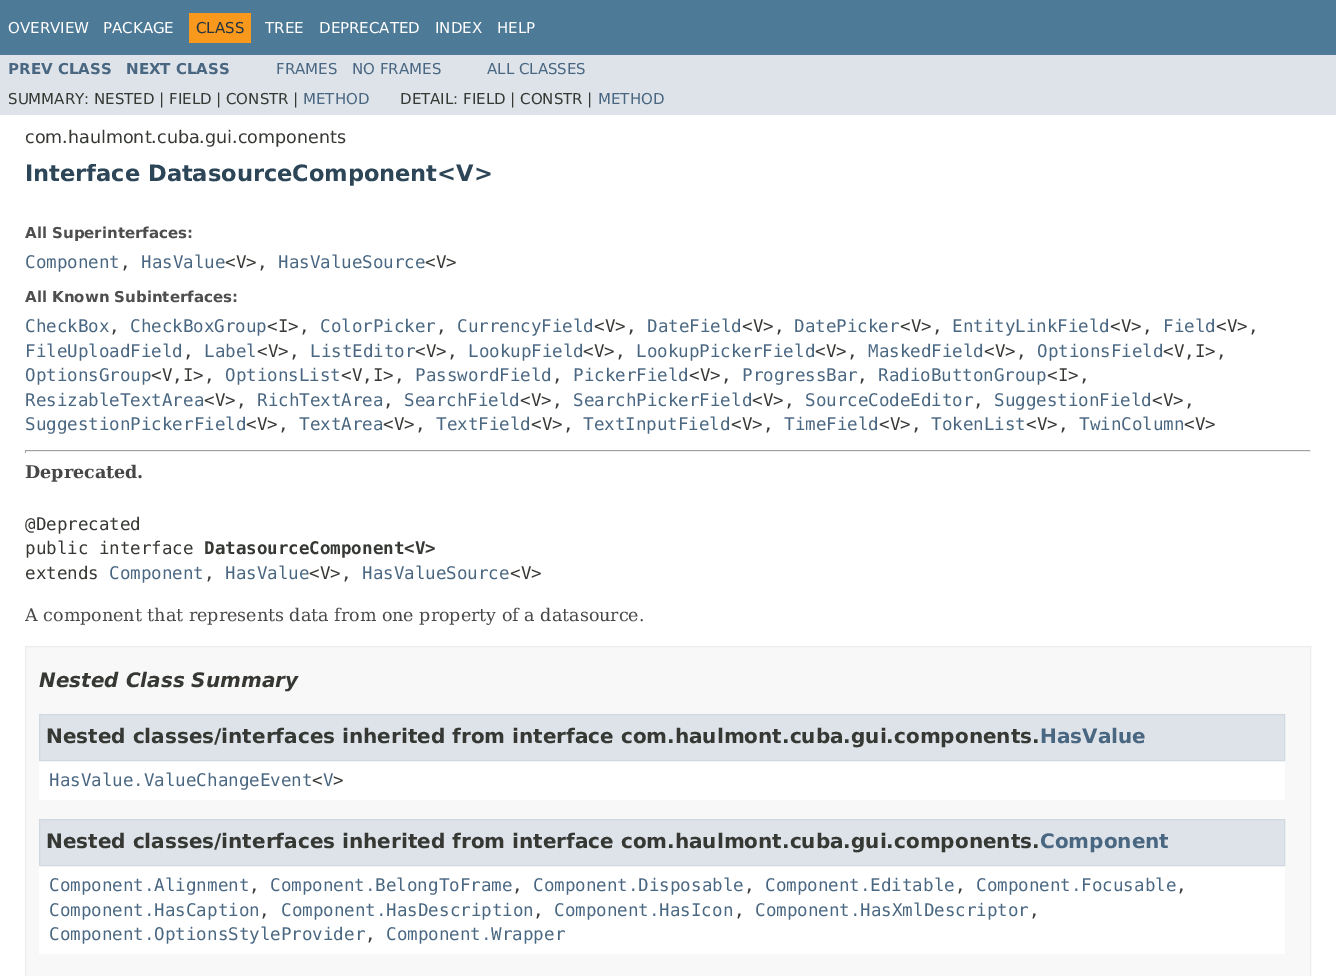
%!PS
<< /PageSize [1336 976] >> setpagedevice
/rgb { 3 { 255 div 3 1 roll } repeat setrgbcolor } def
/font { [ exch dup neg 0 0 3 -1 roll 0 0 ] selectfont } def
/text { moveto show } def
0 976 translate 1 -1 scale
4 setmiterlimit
255 255 255 rgb
0 0 1336 976 rectfill
77 122 151 rgb
0 0 1336 55 rectfill
248 152 29 rgb
189 13 62 30 rectfill
222 227 233 rgb
0 55 1336 60 rectfill
159 159 159 rgb
25 450 1286 1 rectfill
238 238 238 rgb
1310 450 1 3 rectfill
25 451 1286 1 rectfill
159 159 159 rgb
25 450 1 3 rectfill
248 248 248 rgb
25.5 646.5 moveto 1285 0 rlineto 0 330 rlineto -1285 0 rlineto closepath gsave fill grestore
237 237 237 rgb
stroke
255 255 255 rgb
39 761 1246 39 rectfill
222 227 233 rgb
39.5 714.5 moveto 1245 0 rlineto 0 46 rlineto -1245 0 rlineto closepath gsave fill grestore
208 217 224 rgb
stroke
255 255 255 rgb
39 866 1246 88 rectfill
222 227 233 rgb
39.5 819.5 moveto 1245 0 rlineto 0 46 rlineto -1245 0 rlineto closepath gsave fill grestore
208 217 224 rgb
stroke
/DejaVuSans-Regular 15 font
255 255 255 rgb
(OVERVIEW) 8 33 text
(PACKAGE) 103 33 text
37 52 65 rgb
(CLASS) 196 33 text
255 255 255 rgb
(TREE) 265 33 text
(DEPRECATED) 319 33 text
(INDEX) 435 33 text
(HELP) 497 33 text
/DejaVuSans-Bold 15 font
74 103 130 rgb
(PREV CLASS) 8 74 text
(NEXT CLASS) 126 74 text
/DejaVuSans-Regular 15 font
(FRAMES) 276 74 text
(NO FRAMES) 352 74 text
(ALL CLASSES) 487 74 text
53 56 51 rgb
(SUMMARY: NESTED | FIELD | CONSTR |) 8 104 text
74 103 130 rgb
(METHOD) 303 104 text
53 56 51 rgb
(DETAIL: FIELD | CONSTR |) 400 104 text
74 103 130 rgb
(METHOD) 598 104 text
/DejaVuSans-Regular 17.5 font
53 56 51 rgb
(com.haulmont.cuba.gui.components) 25 143 text
/DejaVuSans-Bold 22.5 font
44 69 87 rgb
(Interface DatasourceComponent<V>) 25 181 text
/DejaVuSans-Bold 15 font
78 78 78 rgb
(All Superinterfaces:) 25 238 text
/DejaVuSansMono-Regular 17.5 font
74 103 130 rgb
(Component) 25 268 text
53 56 51 rgb
(,) 120 268 text
74 103 130 rgb
(HasValue) 141 268 text
53 56 51 rgb
(<V>,) 225 268 text
74 103 130 rgb
(HasValueSource) 278 268 text
53 56 51 rgb
(<V>) 425 268 text
/DejaVuSans-Bold 15 font
78 78 78 rgb
(All Known Subinterfaces:) 25 302 text
/DejaVuSansMono-Regular 17.5 font
74 103 130 rgb
(CheckBox) 25 332 text
53 56 51 rgb
(,) 109 332 text
74 103 130 rgb
(CheckBoxGroup) 130 332 text
53 56 51 rgb
(<I>,) 267 332 text
74 103 130 rgb
(ColorPicker) 320 332 text
53 56 51 rgb
(,) 436 332 text
74 103 130 rgb
(CurrencyField) 457 332 text
53 56 51 rgb
(<V>,) 594 332 text
74 103 130 rgb
(DateField) 647 332 text
53 56 51 rgb
(<V>,) 742 332 text
74 103 130 rgb
(DatePicker) 794 332 text
53 56 51 rgb
(<V>,) 900 332 text
74 103 130 rgb
(EntityLinkField) 952 332 text
53 56 51 rgb
(<V>,) 1110 332 text
74 103 130 rgb
(Field) 1163 332 text
53 56 51 rgb
(<V>,) 1216 332 text
74 103 130 rgb
(FileUploadField) 25 357 text
53 56 51 rgb
(,) 183 357 text
74 103 130 rgb
(Label) 204 357 text
53 56 51 rgb
(<V>,) 257 357 text
74 103 130 rgb
(ListEditor) 310 357 text
53 56 51 rgb
(<V>,) 415 357 text
74 103 130 rgb
(LookupField) 468 357 text
53 56 51 rgb
(<V>,) 583 357 text
74 103 130 rgb
(LookupPickerField) 636 357 text
53 56 51 rgb
(<V>,) 815 357 text
74 103 130 rgb
(MaskedField) 868 357 text
53 56 51 rgb
(<V>,) 984 357 text
74 103 130 rgb
(OptionsField) 1037 357 text
53 56 51 rgb
(<V,I>,) 1163 357 text
74 103 130 rgb
(OptionsGroup) 25 381 text
53 56 51 rgb
(<V,I>,) 151 381 text
74 103 130 rgb
(OptionsList) 225 381 text
53 56 51 rgb
(<V,I>,) 341 381 text
74 103 130 rgb
(PasswordField) 415 381 text
53 56 51 rgb
(,) 552 381 text
74 103 130 rgb
(PickerField) 573 381 text
53 56 51 rgb
(<V>,) 689 381 text
74 103 130 rgb
(ProgressBar) 742 381 text
53 56 51 rgb
(,) 857 381 text
74 103 130 rgb
(RadioButtonGroup) 878 381 text
53 56 51 rgb
(<I>,) 1047 381 text
74 103 130 rgb
(ResizableTextArea) 25 406 text
53 56 51 rgb
(<V>,) 204 406 text
74 103 130 rgb
(RichTextArea) 257 406 text
53 56 51 rgb
(,) 383 406 text
74 103 130 rgb
(SearchField) 404 406 text
53 56 51 rgb
(<V>,) 520 406 text
74 103 130 rgb
(SearchPickerField) 573 406 text
53 56 51 rgb
(<V>,) 752 406 text
74 103 130 rgb
(SourceCodeEditor) 805 406 text
53 56 51 rgb
(,) 973 406 text
74 103 130 rgb
(SuggestionField) 994 406 text
53 56 51 rgb
(<V>,) 1152 406 text
74 103 130 rgb
(SuggestionPickerField) 25 430 text
53 56 51 rgb
(<V>,) 246 430 text
74 103 130 rgb
(TextArea) 299 430 text
53 56 51 rgb
(<V>,) 383 430 text
74 103 130 rgb
(TextField) 436 430 text
53 56 51 rgb
(<V>,) 531 430 text
74 103 130 rgb
(TextInputField) 583 430 text
53 56 51 rgb
(<V>,) 731 430 text
74 103 130 rgb
(TimeField) 784 430 text
53 56 51 rgb
(<V>,) 879 430 text
74 103 130 rgb
(TokenList) 931 430 text
53 56 51 rgb
(<V>,) 1026 430 text
74 103 130 rgb
(TwinColumn) 1079 430 text
53 56 51 rgb
(<V>) 1184 430 text
/DejaVuSerif-Bold 17.5 font
71 71 71 rgb
(Deprecated.) 25 478 text
/DejaVuSansMono-Regular 17.5 font
53 56 51 rgb
(@Deprecated) 25 530 text
(public interface) 25 554 text
/DejaVuSansMono-Bold 17.5 font
(DatasourceComponent<V>) 204 554 text
/DejaVuSansMono-Regular 17.5 font
(extends) 25 579 text
74 103 130 rgb
(Component) 109 579 text
53 56 51 rgb
(,) 204 579 text
74 103 130 rgb
(HasValue) 225 579 text
53 56 51 rgb
(<V>,) 309 579 text
74 103 130 rgb
(HasValueSource) 362 579 text
53 56 51 rgb
(<V>) 510 579 text
/DejaVuSerif-Regular 17.5 font
71 71 71 rgb
(A component that represents data from one property of a datasource.) 25 621 text
/DejaVuSans-BoldItalic 20 font
53 56 51 rgb
(Nested Class Summary) 39 687 text
/DejaVuSans-Bold 20 font
(Nested classes/interfaces inherited from interface com.haulmont.cuba.gui.components.) 46 743 text
74 103 130 rgb
(HasValue) 1040 743 text
/DejaVuSansMono-Regular 17.5 font
(HasValue.ValueChangeEvent V) 49 786 text
53 56 51 rgb
(< >) 312 786 text
/DejaVuSans-Bold 20 font
(Nested classes/interfaces inherited from interface com.haulmont.cuba.gui.components.) 46 848 text
74 103 130 rgb
(Component) 1040 848 text
/DejaVuSansMono-Regular 17.5 font
(Component.Alignment) 49 891 text
53 56 51 rgb
(,) 249 891 text
74 103 130 rgb
(Component.BelongToFrame) 270 891 text
53 56 51 rgb
(,) 512 891 text
74 103 130 rgb
(Component.Disposable) 533 891 text
53 56 51 rgb
(,) 744 891 text
74 103 130 rgb
(Component.Editable) 765 891 text
53 56 51 rgb
(,) 955 891 text
74 103 130 rgb
(Component.Focusable) 976 891 text
53 56 51 rgb
(,) 1176 891 text
74 103 130 rgb
(Component.HasCaption) 49 916 text
53 56 51 rgb
(,) 259 916 text
74 103 130 rgb
(Component.HasDescription) 281 916 text
53 56 51 rgb
(,) 533 916 text
74 103 130 rgb
(Component.HasIcon) 554 916 text
53 56 51 rgb
(,) 734 916 text
74 103 130 rgb
(Component.HasXmlDescriptor) 755 916 text
53 56 51 rgb
(,) 1029 916 text
74 103 130 rgb
(Component.OptionsStyleProvider) 49 940 text
53 56 51 rgb
(,) 365 940 text
74 103 130 rgb
(Component.Wrapper) 386 940 text
showpage
